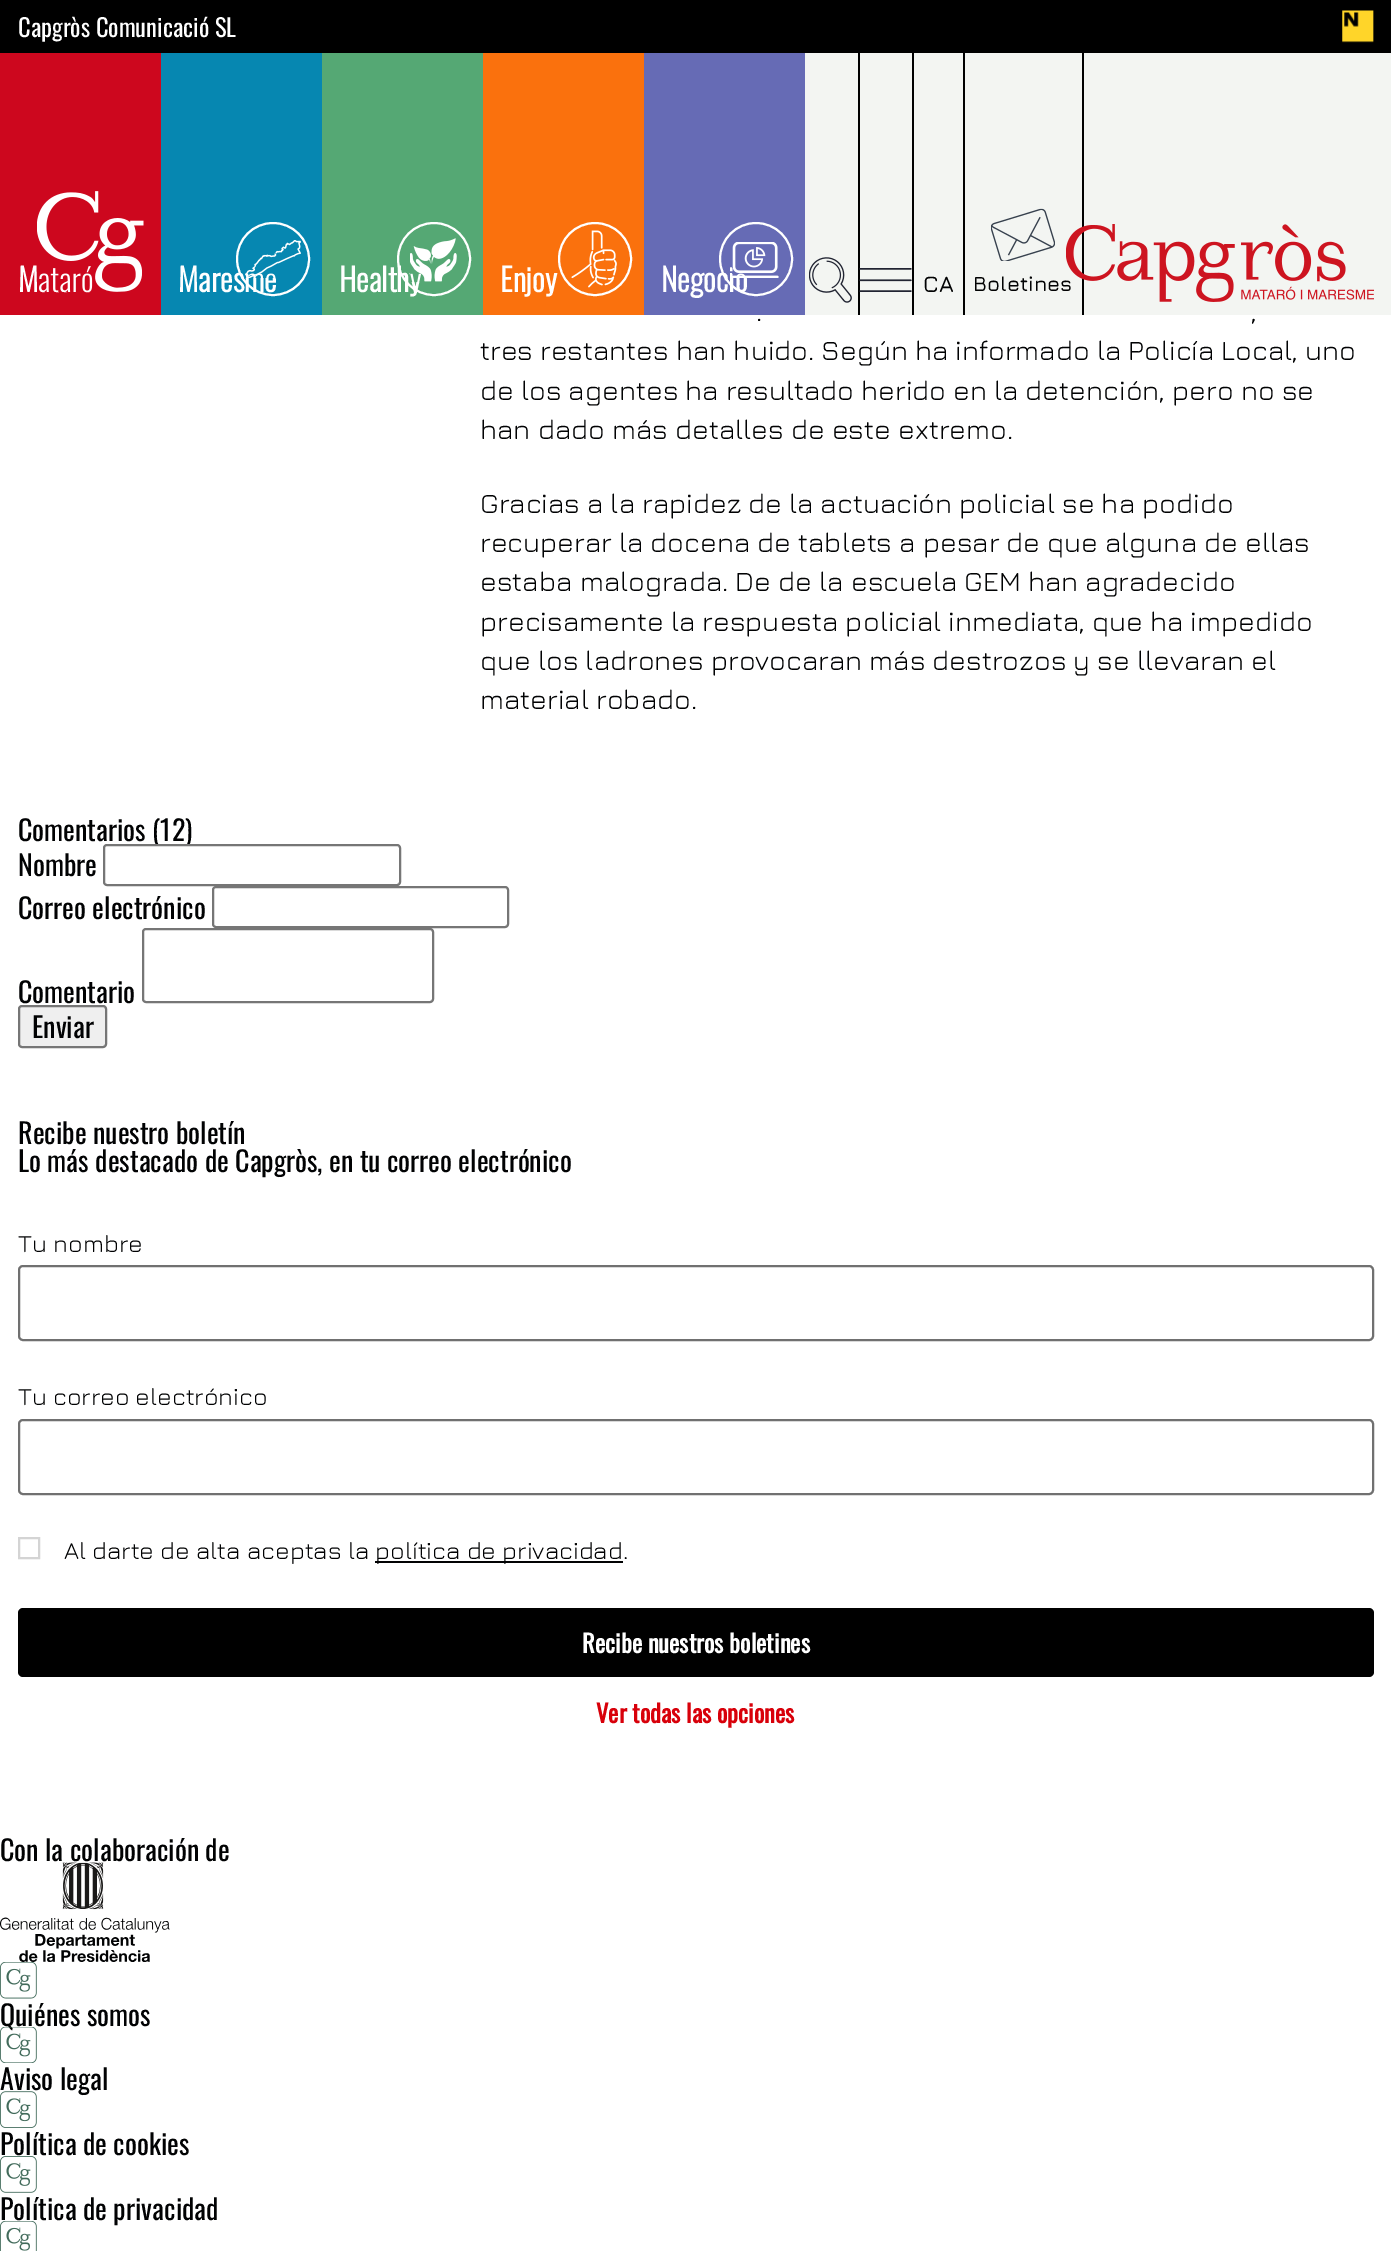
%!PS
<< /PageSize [1391 2251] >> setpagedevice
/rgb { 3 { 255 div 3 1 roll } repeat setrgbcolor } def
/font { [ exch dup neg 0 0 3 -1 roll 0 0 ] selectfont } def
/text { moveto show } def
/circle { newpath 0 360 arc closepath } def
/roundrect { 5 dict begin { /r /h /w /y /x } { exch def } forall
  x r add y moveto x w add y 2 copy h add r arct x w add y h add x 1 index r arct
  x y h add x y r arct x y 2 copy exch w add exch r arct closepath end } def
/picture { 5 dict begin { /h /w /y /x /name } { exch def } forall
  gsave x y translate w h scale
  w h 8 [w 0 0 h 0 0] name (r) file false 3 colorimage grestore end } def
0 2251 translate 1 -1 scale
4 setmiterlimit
255 255 255 rgb
0 0 1391 2251 rectfill
0 0 0 rgb
0 0 1391 53 rectfill
(img_01.rgb) 1342 10 32 33 picture
243 245 242 rgb
805 53 586 262 rectfill
205 7 30 rgb
0 53 161 262 rectfill
6 135 177 rgb
161 53 161 262 rectfill
85 168 116 rgb
322 53 161 262 rectfill
250 113 13 rgb
483 53 161 262 rectfill
(img_05.rgb) 571 230 46 58 picture
255 255 255 rgb
2 setlinewidth
595 259 36 circle stroke
102 107 181 rgb
644 53 161 262 rectfill
0 0 0 rgb
858 53 2 262 rectfill
(img_07.rgb) 809 257 43 46 picture
912 53 2 262 rectfill
(img_08.rgb) 859 268 53 24 picture
963 53 2 262 rectfill
1082 53 2 262 rectfill
(img_09.rgb) 991 208 64 53 picture
118 118 118 rgb
213 887 295 40 3 roundrect stroke
143 929 290 73 3 roundrect stroke
239 239 239 rgb
19 1006 87 41 3 roundrect gsave fill grestore
118 118 118 rgb
stroke
112 112 112 rgb
19 1266 1354 74 4 roundrect stroke
19 1420 1354 74 4 roundrect stroke
212 212 212 rgb
19 1538 20 20 rectstroke
1 2 3 rgb
375 1561 248 2 rectfill
0 0 0 rgb
18 1608 1356 69 5 roundrect fill
(img_11.rgb) 0 1862 170 100 picture
(img_12.rgb) 0 1962 37 37 picture
(img_15.rgb) 0 2156 37 37 picture
/Oswald-Regular 24.5 font
255 255 255 rgb
(Capgròs Comunicació SL) 18 37 text
/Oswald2-Bold 31.5 font
(Mataró) 18 292 text
(img_02.rgb) 37 191 107 101 picture
(Maresme) 178 292 text
(img_03.rgb) 245 240 56 38 picture
273 259 36 circle stroke
(Healthy) 339 292 text
(img_04.rgb) 410 238 47 44 picture
434 259 36 circle stroke
(Enjoy) 500 292 text
(Negocio) 661 292 text
(img_06.rgb) 732 242 47 36 picture
756 259 36 circle stroke
/Jura-SemiBold 23 font
1 2 3 rgb
(CA) 923 292 text
/Jura-SemiBold 21 font
(Boletines) 973 291 text
(img_10.rgb) 1066 224 308 78 picture
/Jura-Regular 28 font
(.) 756 321 text
(,) 1251 321 text
(tres restantes han huido. Según ha informado la Policía Local, uno) 480 360 text
(de los agentes ha resultado herido en la detención, pero no se) 480 400 text
(han dado más detalles de este extremo.) 480 439 text
(Gracias a la rapidez de la actuación policial se ha podido) 480 513 text
(recuperar la docena de tablets a pesar de que alguna de ellas) 480 552 text
(estaba malograda. De de la escuela GEM han agradecido) 480 591 text
(precisamente la respuesta policial inmediata, que ha impedido) 480 631 text
(que los ladrones provocaran más destrozos y se llevaran el) 480 670 text
(material robado.) 480 709 text
/Oswald-Regular 28 font
(Comentarios \(12\)) 18 841 text
(Nombre) 18 876 text
255 255 255 rgb
104 845 296 40 3 roundrect gsave fill grestore
118 118 118 rgb
stroke
1 2 3 rgb
(Correo electrónico) 18 919 text
(Comentario) 18 1003 text
(Enviar) 32 1038 text
(Recibe nuestro boletín) 18 1144 text
(Lo más destacado de Capgròs, en tu correo electrónico) 18 1172 text
/Jura-Regular 24.5 font
(Tu nombre) 18 1252 text
(Tu correo electrónico) 18 1405 text
(Al darte de alta aceptas la) 64 1559 text
(política de privacidad.) 375 1559 text
/Oswald-Bold 24.5 font
255 255 255 rgb
(Recibe nuestros boletines) 582 1653 text
216 0 10 rgb
(Ver todas las opciones) 596 1723 text
/Oswald-Regular 28 font
1 2 3 rgb
(Con la colaboración de) 0 1861 text
(Quiénes somos) 0 2026 text
(img_13.rgb) 0 2027 37 36 picture
(Aviso legal) 0 2090 text
(img_14.rgb) 0 2091 37 37 picture
(Política de cookies) 0 2155 text
(Política de privacidad) 0 2220 text
(img_16.rgb) 0 2221 37 30 picture
showpage
